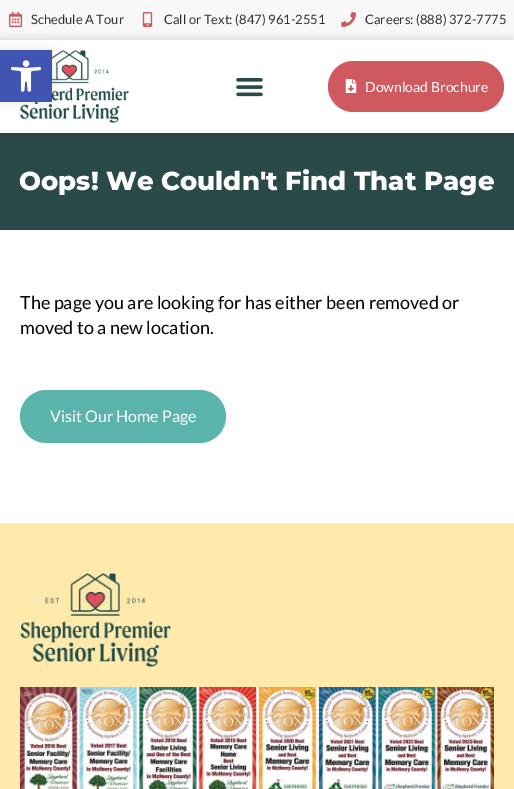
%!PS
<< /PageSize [514 789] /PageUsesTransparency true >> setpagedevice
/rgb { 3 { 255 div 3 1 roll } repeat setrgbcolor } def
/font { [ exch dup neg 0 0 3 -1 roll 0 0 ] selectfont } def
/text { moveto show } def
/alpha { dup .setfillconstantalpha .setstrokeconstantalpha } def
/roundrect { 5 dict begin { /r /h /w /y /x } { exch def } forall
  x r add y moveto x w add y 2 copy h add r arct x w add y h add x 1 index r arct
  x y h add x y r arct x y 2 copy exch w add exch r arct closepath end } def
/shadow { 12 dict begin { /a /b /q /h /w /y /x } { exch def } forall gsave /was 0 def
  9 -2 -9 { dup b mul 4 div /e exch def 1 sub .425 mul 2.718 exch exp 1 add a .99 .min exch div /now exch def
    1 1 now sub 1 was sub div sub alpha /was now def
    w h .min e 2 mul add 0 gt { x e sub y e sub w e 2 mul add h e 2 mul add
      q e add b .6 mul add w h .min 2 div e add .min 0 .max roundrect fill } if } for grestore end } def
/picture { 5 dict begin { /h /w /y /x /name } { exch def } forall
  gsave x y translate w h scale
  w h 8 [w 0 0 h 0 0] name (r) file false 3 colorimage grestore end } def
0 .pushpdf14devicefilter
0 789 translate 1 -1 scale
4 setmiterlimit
255 255 255 rgb
0 0 514 789 rectfill
248 248 248 rgb
0 0 514 40 rectfill
(img_01.rgb) 8 12 15 15 picture
(img_02.rgb) 142 12 11 15 picture
(img_03.rgb) 341 12 15 15 picture
42 74 73 rgb
0 133 514 97 rectfill
gsave
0 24 moveto 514 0 rlineto 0 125 rlineto -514 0 rlineto closepath 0 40 moveto 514 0 rlineto 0 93 rlineto -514 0 rlineto closepath eoclip newpath
0 0 0 rgb
0 40 514 93 0 5 0.17 shadow
grestore
(img_04.rgb) 19 50 110 73 picture
(img_05.rgb) 236 78 27 19 picture
207 89 95 rgb
328 61 176 51 25.5 roundrect fill
(img_06.rgb) 345 79 12 14 picture
0 0 0 rgb
0 50 52 52 0 5 0.1 shadow
64 84 178 rgb
0 50 52 52 rectfill
(img_07.rgb) 11 60 30 32 picture
90 180 172 rgb
20 390 206 53 26.5 roundrect fill
255 234 171 rgb
0 523 514 266 rectfill
(img_08.rgb) 20 573 151 94 picture
(img_09.rgb) 20 687 474 102 picture
/Lato-Regular 13 font
49 49 49 rgb
(Schedule A Tour) 31 24 text
(Call or Text: \(847\) 961-2551) 164 24 text
(Careers: \(888\) 372-7775) 365 24 text
/Lato-Regular 14 font
255 255 255 rgb
(Download Brochure) 365 92 text
/Montserrat-ExtraBold 26 font
(Oops! We Couldn't Find That Page) 19 190 text
/Lato-Regular 18 font
0 0 0 rgb
(The page you are looking for has either been removed or) 20 309 text
(moved to a new location.) 20 334 text
/Lato-Regular 16 font
255 255 255 rgb
(Visit Our Home Page) 50 422 text
.poppdf14devicefilter showpage
